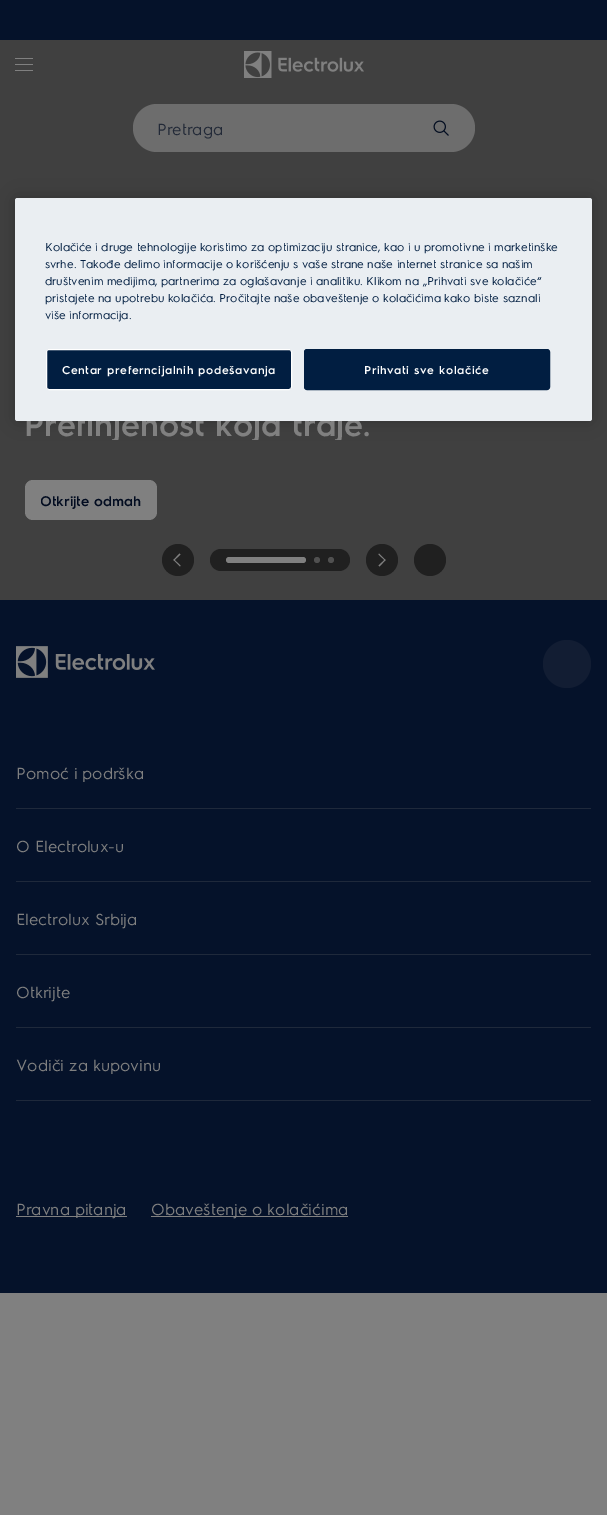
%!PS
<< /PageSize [607 1515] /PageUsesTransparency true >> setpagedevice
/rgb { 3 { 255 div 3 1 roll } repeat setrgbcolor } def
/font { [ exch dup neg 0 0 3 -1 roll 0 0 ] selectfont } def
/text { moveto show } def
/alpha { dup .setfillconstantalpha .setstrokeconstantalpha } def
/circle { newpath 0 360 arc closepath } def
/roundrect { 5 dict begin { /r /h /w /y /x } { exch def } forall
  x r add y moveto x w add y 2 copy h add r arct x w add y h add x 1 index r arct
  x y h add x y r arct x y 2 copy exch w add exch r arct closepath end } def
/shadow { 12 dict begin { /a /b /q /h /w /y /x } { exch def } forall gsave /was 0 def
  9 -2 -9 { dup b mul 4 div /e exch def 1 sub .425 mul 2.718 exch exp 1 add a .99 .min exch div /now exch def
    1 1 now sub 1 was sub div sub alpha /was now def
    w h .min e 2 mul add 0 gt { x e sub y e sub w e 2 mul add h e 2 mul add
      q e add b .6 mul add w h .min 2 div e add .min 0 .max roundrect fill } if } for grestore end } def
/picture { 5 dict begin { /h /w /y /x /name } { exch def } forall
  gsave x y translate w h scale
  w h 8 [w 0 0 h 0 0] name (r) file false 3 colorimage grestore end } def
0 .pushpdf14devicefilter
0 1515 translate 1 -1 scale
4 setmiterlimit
128 128 128 rgb
0 0 607 1515 rectfill
64 64 64 rgb
0 40 607 560 rectfill
5 18 42 rgb
0 0 607 40 rectfill
128 128 128 rgb
15 64 18 1 rectfill
15 58 18 1 rectfill
15 70 18 1 rectfill
(img_01.rgb) 244 51 120 27 picture
109 109 109 rgb
133 104 342 48 24 roundrect fill
(img_02.rgb) 433 120 16 16 picture
128 128 128 rgb
25 480 132 40 8 roundrect fill
32 32 32 rgb
178 560 16 circle fill
128 128 128 rgb
174 559.5 moveto 6.5 6 rlineto -0.5 1 rlineto -6.5 -6.5 rlineto closepath fill
179.5 553.5 moveto 1 1 rlineto -6.5 6 rlineto -0.5 -0.5 rlineto closepath fill
32 32 32 rgb
210 549 140 22 11 roundrect fill
128 128 128 rgb
226 557 80 6 3 roundrect fill
80 80 80 rgb
317 560 3 circle fill
331 560 3 circle fill
32 32 32 rgb
382 560 16 circle fill
128 128 128 rgb
379 553.5 moveto 6.5 6.5 rlineto -0.5 0.5 rlineto -6.5 -6 rlineto closepath fill
385 559.5 moveto 0.5 0.5 rlineto -6 6.5 rlineto -1 -1 rlineto closepath fill
32 32 32 rgb
430 560 16 circle fill
5 18 42 rgb
0 600 607 693 rectfill
(img_03.rgb) 16 646 139 32 picture
18 29 51 rgb
567 664 24 circle fill
31 41 59 rgb
16 808 575 1 rectfill
16 881 575 1 rectfill
16 954 575 1 rectfill
16 1027 575 1 rectfill
16 1100 575 1 rectfill
128 128 128 rgb
16 1216 111 1 rectfill
151 1216 197 1 rectfill
0 0 0 rgb
15 198 577 223 2.5 9 0.2 shadow
/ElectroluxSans-Regular 16 font
34 41 55 rgb
(Pretraga) 157 135 text
gsave
25 405 543 35 rectclip
/ElectroluxSans-SemiBold 32 font
128 128 128 rgb
(Prefinjenost koja traje.) 24 436 text
grestore
gsave
41 490 100 21 rectclip
/ElectroluxSans-SemiBold 14 font
2 12 32 rgb
(Otkrijte odmah) 40 506 text
grestore
128 128 128 rgb
(Pomoć i podrška) 16 779 text
(O Electrolux-u) 16 852 text
(Electrolux Srbija) 16 925 text
(Otkrijte) 16 998 text
(Vodiči za kupovinu) 16 1071 text
(Pravna pitanja) 16 1215 text
(Obaveštenje o kolačićima) 151 1215 text
234 238 242 rgb
15 198 577 223 2.5 roundrect fill
/ElectroluxSans-Regular 11.4 font
1 30 65 rgb
(Kolačiće i druge tehnologije koristimo za optimizaciju stranice, kao i u promotivne i marketinške) 45 251 text
(svrhe. Takođe delimo informacije o korišćenju s vaše strane naše internet stranice sa našim) 45 268 text
(društvenim medijima, partnerima za oglašavanje i analitiku. Klikom na „Prihvati sve kolačiće“) 45 285 text
(pristajete na upotrebu kolačića. Pročitajte naše obaveštenje o kolačićima kako biste saznali) 45 302 text
(više informacija.) 45 319 text
46.5 349.5 245 40 2.5 roundrect gsave fill grestore
255 255 255 rgb
stroke
/ElectroluxSans-SemiBold 11.4 font
62 374 moveto 0.55 0 (Centar preferncijalnih podešavanja) ashow
1 30 65 rgb
304.5 349.5 245 40 2.5 roundrect gsave fill grestore
stroke
255 255 255 rgb
364 374 moveto 0.55 0 (Prihvati sve kolačiće) ashow
.poppdf14devicefilter showpage
